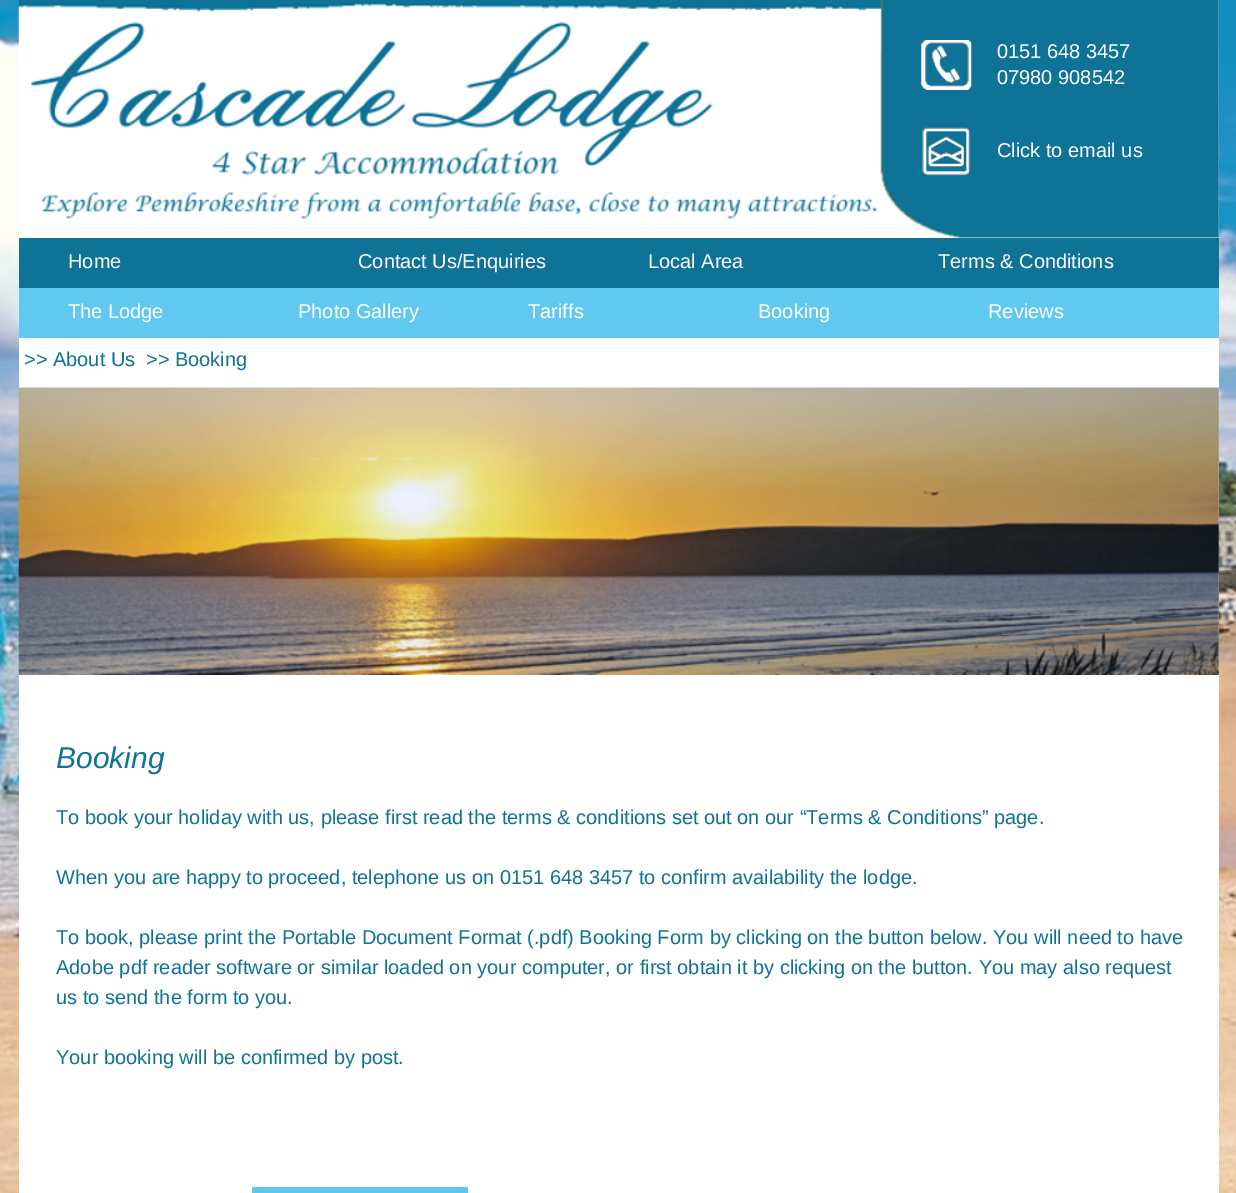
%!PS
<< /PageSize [1236 1193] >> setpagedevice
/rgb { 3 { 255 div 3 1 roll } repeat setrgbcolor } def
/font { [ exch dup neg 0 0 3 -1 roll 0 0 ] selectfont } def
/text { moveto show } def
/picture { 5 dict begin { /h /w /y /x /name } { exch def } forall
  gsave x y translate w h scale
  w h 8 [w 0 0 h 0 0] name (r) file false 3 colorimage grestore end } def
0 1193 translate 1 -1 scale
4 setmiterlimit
255 255 255 rgb
0 0 1236 1193 rectfill
(img_01.rgb) 0 0 1236 1193 picture
19 0 1200 1193 rectfill
(img_02.rgb) 18 0 1201 238 picture
(img_03.rgb) 921 40 51 50 picture
(img_04.rgb) 922 127 49 49 picture
15 114 151 rgb
19 238 1200 50 rectfill
97 200 239 rgb
19 288 1200 50 rectfill
(img_05.rgb) 18 387 1201 288 picture
97 200 237 rgb
252 1187 216 6 rectfill
/LiberationSans-Regular 20 font
255 255 255 rgb
(0151 648 3457) 997 58 text
(07980 908542) 997 84 text
(Click to email us) 997 157 text
(Home) 68 268 text
(Contact Us/Enquiries) 358 268 text
(Local Area) 648 268 text
(Terms & Conditions) 938 268 text
(The Lodge) 68 318 text
(Photo Gallery) 298 318 text
(Tariffs) 528 318 text
(Booking) 758 318 text
(Reviews) 988 318 text
15 114 151 rgb
(>> About Us) 24 366 text
(>> Booking) 146 366 text
/LiberationSans-Italic 30 font
(Booking) 56 768 text
/LiberationSans-Regular 20 font
(To book your holiday with us, please first read the terms & conditions set out on our “Terms & Conditions” page.) 56 824 text
(When you are happy to proceed, telephone us on 0151 648 3457 to confirm availability the lodge.) 56 884 text
(To book, please print the Portable Document Format \(.pdf\) Booking Form by clicking on the button below. You will need to have) 56 944 text
(Adobe pdf reader software or similar loaded on your computer, or first obtain it by clicking on the button. You may also request) 56 974 text
(us to send the form to you.) 56 1004 text
(Your booking will be confirmed by post.) 56 1064 text
showpage
